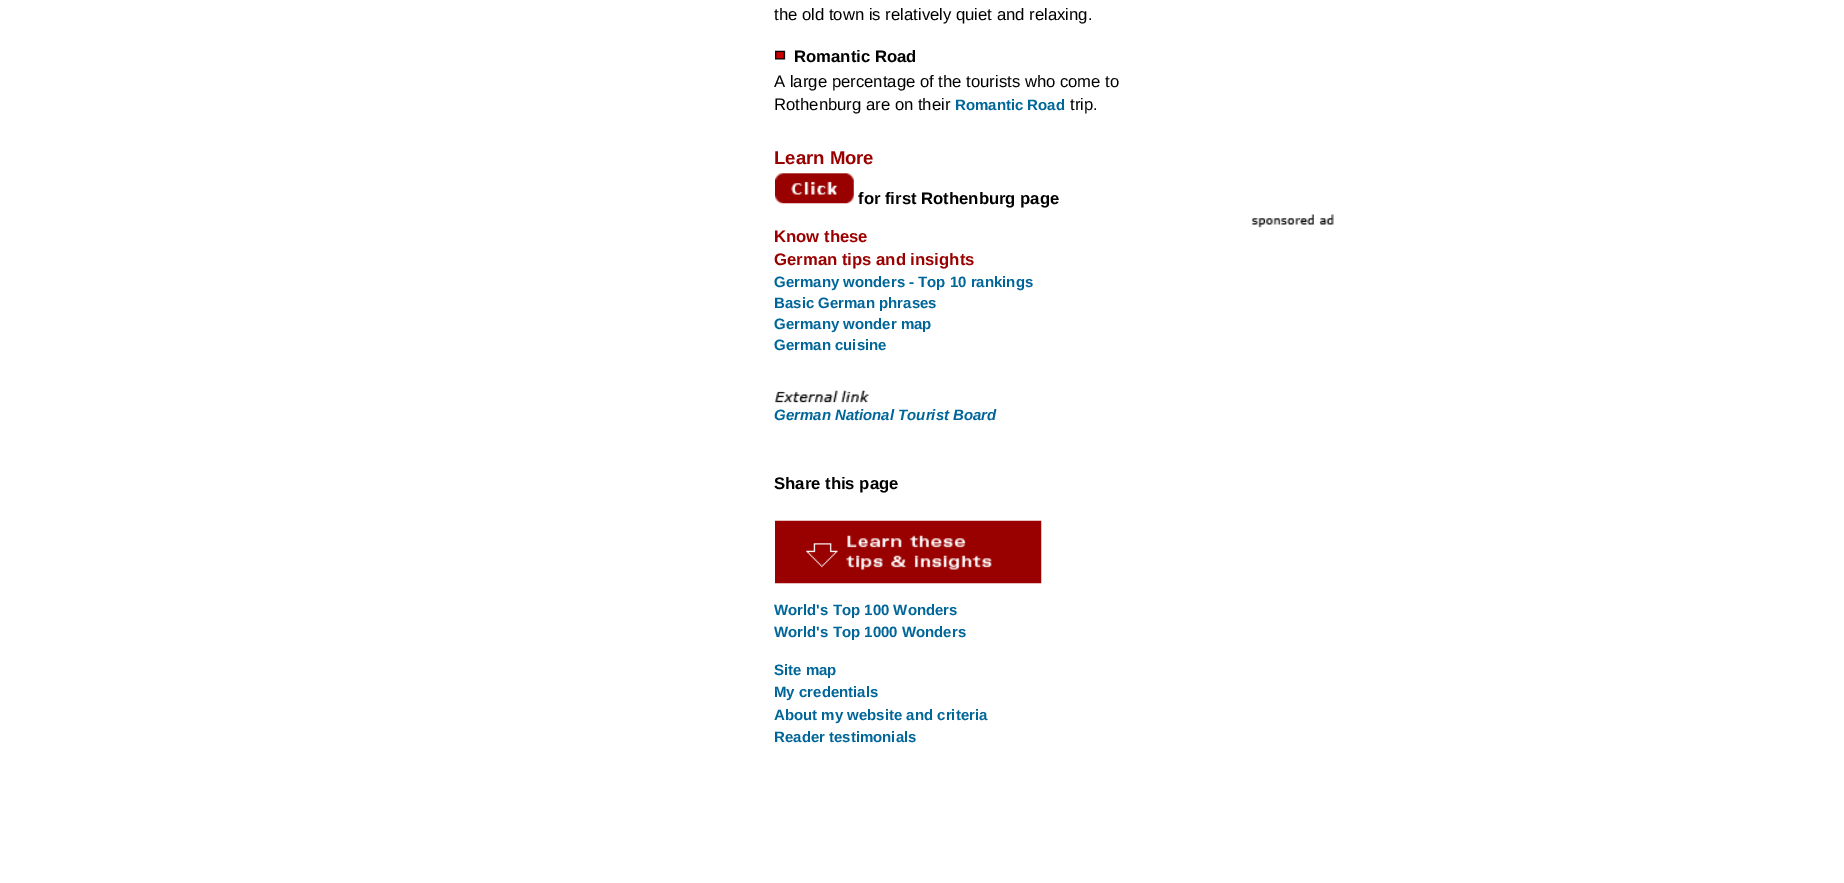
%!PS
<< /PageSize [1844 883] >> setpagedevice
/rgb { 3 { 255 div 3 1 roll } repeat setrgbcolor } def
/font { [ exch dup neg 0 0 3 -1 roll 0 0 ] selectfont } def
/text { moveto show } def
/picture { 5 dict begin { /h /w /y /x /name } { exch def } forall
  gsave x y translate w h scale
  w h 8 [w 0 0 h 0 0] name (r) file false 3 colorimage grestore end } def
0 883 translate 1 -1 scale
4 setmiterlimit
255 255 255 rgb
0 0 1844 883 rectfill
(img_01.rgb) 775 50 11 10 picture
(img_02.rgb) 775 173 79 31 picture
(img_03.rgb) 775 390 94 13 picture
(img_04.rgb) 775 520 267 64 picture
(img_05.rgb) 1251 214 83 14 picture
/LiberationSans-Regular 16.7 font
0 0 0 rgb
(the old town is relatively quiet and relaxing.) 774 20 text
/LiberationSans-Bold 16.7 font
(Romantic Road) 794 62 text
/LiberationSans-Regular 16.7 font
(A large percentage of the tourists who come to) 774 87 text
(Rothenburg are on their) 774 110 text
/LiberationSans-Bold 15 font
0 102 153 rgb
(Romantic Road) 955 110 text
/LiberationSans-Regular 16.7 font
0 0 0 rgb
(trip.) 1070 110 text
/LiberationSans-Bold 18.5 font
153 0 0 rgb
(Learn More) 774 164 text
/LiberationSans-Bold 16.7 font
0 0 0 rgb
(for first Rothenburg page) 858 204 text
153 0 0 rgb
(Know these) 774 242 text
(German tips and insights) 774 265 text
/LiberationSans-Bold 15 font
0 102 153 rgb
(Germany wonders - Top 10 rankings) 774 287 text
(Basic German phrases) 774 308 text
(Germany wonder map) 774 329 text
(German cuisine) 774 350 text
/LiberationSans-BoldItalic 15 font
(German National Tourist Board) 774 420 text
/LiberationSans-Bold 16.7 font
0 0 0 rgb
(Share this page) 774 489 text
/LiberationSans-Bold 15 font
0 102 153 rgb
(World's Top 100 Wonders) 774 615 text
(World's Top 1000 Wonders) 774 637 text
(Site map) 774 675 text
(My credentials) 774 697 text
(About my website and criteria) 774 720 text
(Reader testimonials) 774 742 text
showpage
